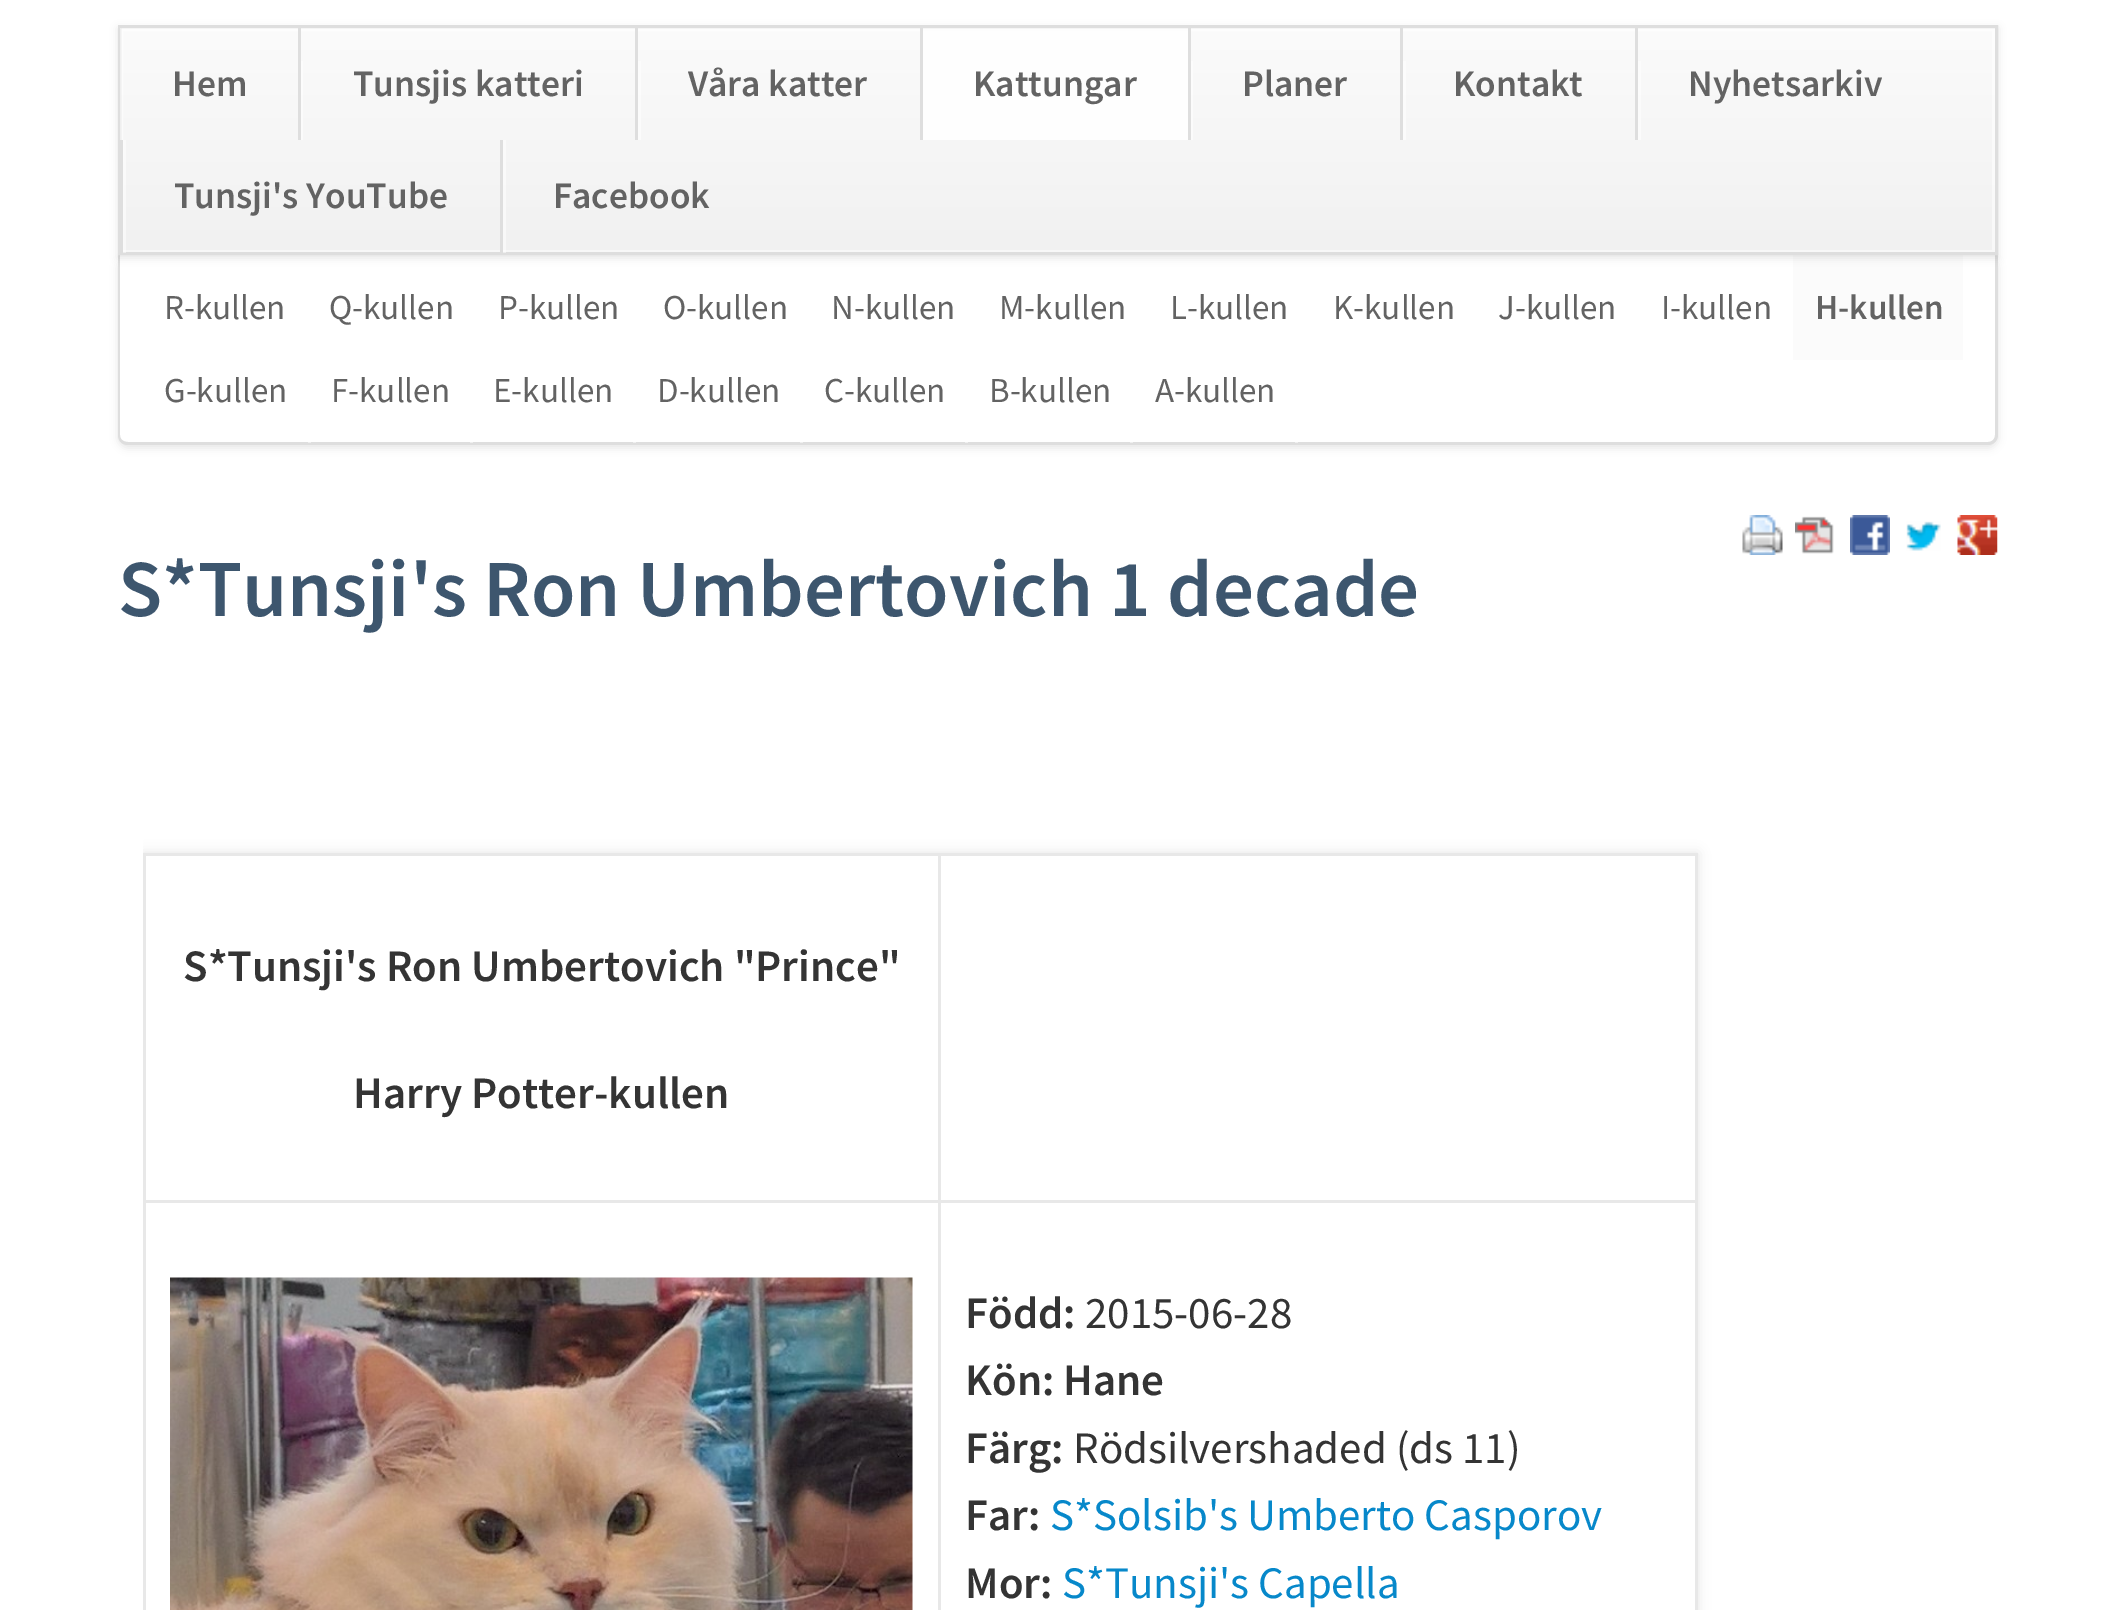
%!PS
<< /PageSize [2113 1610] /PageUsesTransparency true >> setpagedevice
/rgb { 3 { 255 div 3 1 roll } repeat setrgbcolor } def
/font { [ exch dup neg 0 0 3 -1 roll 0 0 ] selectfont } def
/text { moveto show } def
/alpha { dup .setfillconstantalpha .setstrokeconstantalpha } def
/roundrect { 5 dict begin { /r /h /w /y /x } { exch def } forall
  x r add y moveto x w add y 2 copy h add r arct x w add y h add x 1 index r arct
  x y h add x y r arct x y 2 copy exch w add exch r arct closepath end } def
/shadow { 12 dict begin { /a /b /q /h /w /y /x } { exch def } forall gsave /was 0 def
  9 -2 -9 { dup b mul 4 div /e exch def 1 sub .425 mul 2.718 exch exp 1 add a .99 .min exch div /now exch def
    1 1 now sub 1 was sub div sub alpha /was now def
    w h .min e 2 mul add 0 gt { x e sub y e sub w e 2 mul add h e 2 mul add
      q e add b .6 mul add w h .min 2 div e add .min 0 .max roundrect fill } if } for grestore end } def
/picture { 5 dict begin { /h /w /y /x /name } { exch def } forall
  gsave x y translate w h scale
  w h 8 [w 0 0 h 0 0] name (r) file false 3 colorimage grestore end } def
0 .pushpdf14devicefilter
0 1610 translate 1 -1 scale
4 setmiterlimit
255 255 255 rgb
0 0 2113 1610 rectfill
gsave
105 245 moveto 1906 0 rlineto 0 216 rlineto -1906 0 rlineto closepath 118 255 moveto 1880 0 rlineto 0 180 rlineto 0 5.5 -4.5 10 -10 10 rcurveto -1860 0 rlineto -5.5 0 -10 -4.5 -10 -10 rcurveto closepath eoclip newpath
0 0 0 rgb
118 258 1880 190 10 4 0.1 shadow
grestore
222 222 222 rgb
118 255 moveto 1880 0 rlineto 0 180 rlineto 0 6 -5 10 -10 10 rcurveto -1860 0 rlineto -6 0 -10 -4 -10 -10 rcurveto closepath 120 255 moveto 1875 0 rlineto 0 180 rlineto 0 4 -3 7 -7 7 rcurveto -1860 0 rlineto -5 0 -8 -3 -8 -7 rcurveto closepath eofill
251 251 251 rgb
1793 255 170 105 rectfill
0 0 0 rgb
118 28 1880 230 0 4 0.1 shadow
gsave 121 28 moveto 1874 0 rlineto 0 224 rlineto -1874 0 rlineto closepath clip newpath
<< /ShadingType 2 /ColorSpace /DeviceRGB /Coords [1058 27 1058 253] /Extend [true true] /Function << /FunctionType 2 /Domain [0 1] /C0 [0.984 0.984 0.984] /C1 [0.945 0.945 0.945] /N 1 >> >> shfill grestore
0.5 alpha
255 255 255 rgb
3 setlinewidth
121.5 29.5 1872 222 rectstroke
1 alpha
222 222 222 rgb
119.5 26.5 1877 227 rectstroke
0.5 alpha
255 255 255 rgb
120 28 1 112 rectfill
301 61 2 79 rectfill
1 alpha
222 222 222 rgb
298 28 3 112 rectfill
0.5 alpha
255 255 255 rgb
638 61 3 79 rectfill
1 alpha
222 222 222 rgb
635 28 3 112 rectfill
254 254 254 rgb
923 31 265 109 rectfill
222 222 222 rgb
920 28 3 112 rectfill
0.5 alpha
255 255 255 rgb
1191 61 2 79 rectfill
1 alpha
222 222 222 rgb
1188 28 3 112 rectfill
0.5 alpha
255 255 255 rgb
1403 61 3 79 rectfill
1 alpha
222 222 222 rgb
1400 28 3 112 rectfill
0.5 alpha
255 255 255 rgb
1638 61 3 79 rectfill
1 alpha
222 222 222 rgb
1635 28 3 112 rectfill
0.5 alpha
255 255 255 rgb
123 140 3 113 rectfill
1 alpha
222 222 222 rgb
121 140 2 113 rectfill
0.5 alpha
255 255 255 rgb
503 140 3 113 rectfill
1 alpha
222 222 222 rgb
500 140 3 113 rectfill
0.5 alpha
255 255 255 rgb
308 442 3 1 rectfill
470 442 3 1 rectfill
633 442 3 1 rectfill
800 442 3 1 rectfill
965 442 3 1 rectfill
1130 442 3 1 rectfill
1295 442 3 1 rectfill
1 alpha
(img_01.rgb) 1742 515 41 40 picture
(img_02.rgb) 1795 516 39 38 picture
(img_03.rgb) 1850 515 40 40 picture
(img_04.rgb) 1906 521 35 30 picture
(img_05.rgb) 1957 515 41 40 picture
gsave
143 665 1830 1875 rectclip
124 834 moveto 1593 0 rlineto 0 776 rlineto -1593 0 rlineto closepath 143 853 moveto 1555 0 rlineto 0 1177 rlineto -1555 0 rlineto closepath eoclip newpath
0 0 0 rgb
143 853 1555 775 0 6 0.1 shadow
grestore
232 232 232 rgb
938 853 760 3 rectfill
938 1200 760 3 rectfill
938 1200 3 410 rectfill
143 1200 797 3 rectfill
938 853 3 350 rectfill
143 853 797 3 rectfill
143 1200 3 410 rectfill
143 853 3 350 rectfill
1695 1200 3 410 rectfill
1695 853 3 350 rectfill
(img_06.rgb) 170 1277 743 333 picture
/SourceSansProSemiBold-SemiBold 37.5 font
99 99 99 rgb
(Hem) 172 96 text
(Tunsjis katteri) 353 96 text
(Våra katter) 688 96 text
(Kattungar) 973 96 text
(Planer) 1242 96 text
(Kontakt) 1453 96 text
(Nyhetsarkiv) 1688 96 text
(Tunsji's YouTube) 174 208 text
(Facebook) 553 208 text
/SourceSansPro-Regular 35 font
(R-kullen) 164 319 text
(Q-kullen) 329 319 text
(P-kullen) 498 319 text
(O-kullen) 663 319 text
(N-kullen) 831 319 text
(M-kullen) 999 319 text
(L-kullen) 1170 319 text
(K-kullen) 1333 319 text
(J-kullen) 1498 319 text
(I-kullen) 1661 319 text
/SourceSansProSemiBold-SemiBold 35 font
(H-kullen) 1815 319 text
/SourceSansPro-Regular 35 font
(G-kullen) 164 402 text
(F-kullen) 331 402 text
(E-kullen) 493 402 text
(D-kullen) 657 402 text
(C-kullen) 824 402 text
(B-kullen) 989 402 text
(A-kullen) 1155 402 text
/SourceSansProSemiBold-SemiBold 81 font
61 86 110 rgb
(S*Tunsji's Ron Umbertovich 1 decade) 118 616 text
/SourceSansProSemiBold-SemiBold 45 font
52 52 52 rgb
(S*Tunsji's Ron Umbertovich "Prince") 183 981 text
(Harry Potter-kullen) 353 1108 text
(Född:) 965 1328 text
/SourceSansPro-Regular 45 font
(2015-06-28) 1085 1328 text
/SourceSansProSemiBold-SemiBold 45 font
(Kön: Hane) 965 1395 text
(Färg:) 965 1463 text
/SourceSansPro-Regular 45 font
(Rödsilvershaded \(ds 11\)) 1073 1463 text
/SourceSansProSemiBold-SemiBold 45 font
(Far:) 965 1530 text
/SourceSansPro-Regular 45 font
7 136 202 rgb
(S*Solsib's Umberto Casporov) 1050 1530 text
/SourceSansProSemiBold-SemiBold 45 font
52 52 52 rgb
(Mor:) 965 1598 text
/SourceSansPro-Regular 45 font
7 136 202 rgb
(S*Tunsji's Capella) 1062 1598 text
.poppdf14devicefilter showpage
